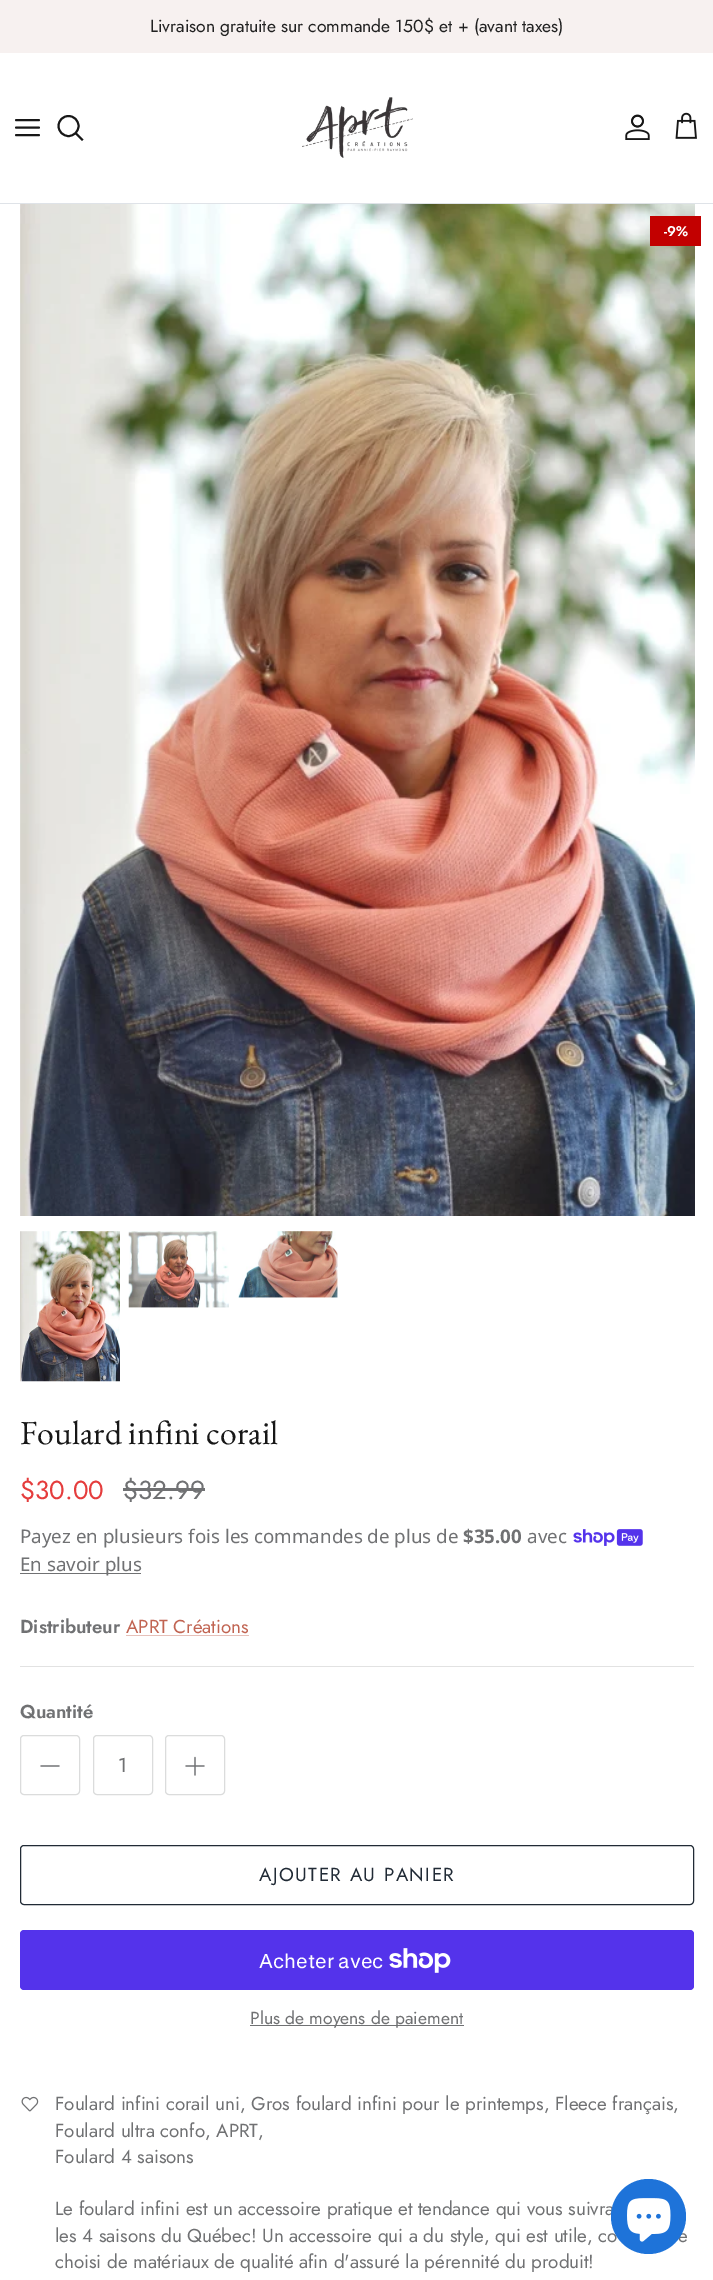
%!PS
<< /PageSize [713 2280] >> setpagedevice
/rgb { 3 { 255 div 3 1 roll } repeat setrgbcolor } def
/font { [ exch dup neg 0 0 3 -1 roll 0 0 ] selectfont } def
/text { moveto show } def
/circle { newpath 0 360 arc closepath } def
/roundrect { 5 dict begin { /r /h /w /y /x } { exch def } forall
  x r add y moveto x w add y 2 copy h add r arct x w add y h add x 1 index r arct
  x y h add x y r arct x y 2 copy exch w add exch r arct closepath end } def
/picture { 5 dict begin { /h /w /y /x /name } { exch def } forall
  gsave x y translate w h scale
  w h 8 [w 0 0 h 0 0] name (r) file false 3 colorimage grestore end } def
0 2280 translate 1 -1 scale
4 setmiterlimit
255 255 255 rgb
0 0 713 2280 rectfill
247 241 240 rgb
0 0 713 53 rectfill
223 227 232 rgb
0 203 713 1 rectfill
23 23 23 rgb
1.9 setlinewidth
1 setlinecap
1 setlinejoin
16 127.5 moveto 23 0 rlineto 16 120 moveto 23 0 rlineto 16 135 moveto 23 0 rlineto stroke
0 setlinecap
0 setlinejoin
68.5 126 10 circle stroke
2 setlinecap
76 133.5 moveto 6 6 rlineto stroke
(img_01.rgb) 302 97 111 61 picture
(img_02.rgb) 625 114 25 26 picture
(img_03.rgb) 675 112 22 27 picture
(img_04.rgb) 20 204 675 1012 picture
194 0 0 rgb
650 216 51 30 rectfill
(img_05.rgb) 20 1231 100 151 picture
(img_06.rgb) 128 1231 101 77 picture
(img_07.rgb) 238 1231 100 67 picture
112 113 115 rgb
123 1488 82 3 rectfill
(img_08.rgb) 573 1529 70 17 picture
20 1573 121 1 rectfill
230 193 186 rgb
126 1635 123 1 rectfill
226 226 226 rgb
20 1666 674 1 rectfill
219 220 220 rgb
1 setlinewidth
0 setlinecap
20.5 1735.5 59 59 3.5 roundrect stroke
112 113 115 rgb
1.2 setlinewidth
1 setlinecap
1 setlinejoin
41 1766 moveto 18 0 rlineto stroke
219 220 220 rgb
1 setlinewidth
0 setlinecap
0 setlinejoin
93.5 1735.5 59 59 3.5 roundrect stroke
165.5 1735.5 59 59 3.5 roundrect stroke
112 113 115 rgb
1.2 setlinewidth
1 setlinecap
1 setlinejoin
195 1757.5 moveto 0 17.5 rlineto 186 1766 moveto 18 0 rlineto stroke
33 43 54 rgb
1 setlinewidth
0 setlinecap
0 setlinejoin
20.5 1845.5 673 59 3.5 roundrect stroke
84 51 235 rgb
20 1930 674 60 4 roundrect fill
(img_09.rgb) 389 1948 62 25 picture
112 113 115 rgb
250 2025 214 1 rectfill
(img_10.rgb) 21 2096 18 16 picture
/Jost-Regular 17.5 font
33 33 33 rgb
(Livraison gratuite sur commande 150$ et + \(avant taxes\)) 150 32 text
/Jost-SemiBold 14 font
255 255 255 rgb
(-9%) 664 236 text
/EBGaramond-Regular 33.75 font
23 23 23 rgb
(Foulard infini corail) 20 1444 text
/Jost-Regular 26 font
229 61 61 rgb
($30.00) 20 1499 text
112 113 115 rgb
($32.99) 123 1499 text
/NotoSans-Regular 18.75 font
(Payez en plusieurs fois les commandes de plus de) 20 1543 text
/NotoSans-Bold 18.75 font
($35.00) 463 1543 text
/NotoSans-Regular 18.75 font
(avec) 527 1543 text
(En savoir plus) 20 1571 text
/Jost-SemiBold 18.75 font
(Distributeur) 20 1633 text
/Jost-Regular 18.75 font
193 100 82 rgb
(APRT Créations) 126 1633 text
/Jost-SemiBold 18.75 font
112 113 115 rgb
(Quantité) 20 1718 text
/Jost-Regular 20 font
(1) 118 1772 text
/Jost-Regular 18.75 font
33 43 54 rgb
259 1881 moveto 1.5 0 (AJOUTER AU PANIER) ashow
/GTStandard-Regular 20 font
255 255 255 rgb
(Acheter avec) 259 1968 text
/Jost-Regular 17.5 font
112 113 115 rgb
(Plus de moyens de paiement) 250 2024 text
/Jost-Regular 18.75 font
(Foulard infini corail uni, Gros foulard infini pour le printemps, Fleece français,) 55 2110 text
(Foulard ultra confo, APRT,) 55 2137 text
(Foulard 4 saisons) 55 2163 text
(Le foulard infini est un accessoire pratique et tendance qui vous suivra) 55 2215 text
(les 4 saisons du Québec! Un accessoire qui a du style, qui est utile, co) 55 2242 text
(e) 678 2242 text
(choisi de matériaux de qualité afin d'assuré la pérennité du produit!) 55 2268 text
30 115 217 rgb
648.5 2216.5 37.5 circle fill
(img_11.rgb) 627 2198 44 44 picture
showpage
